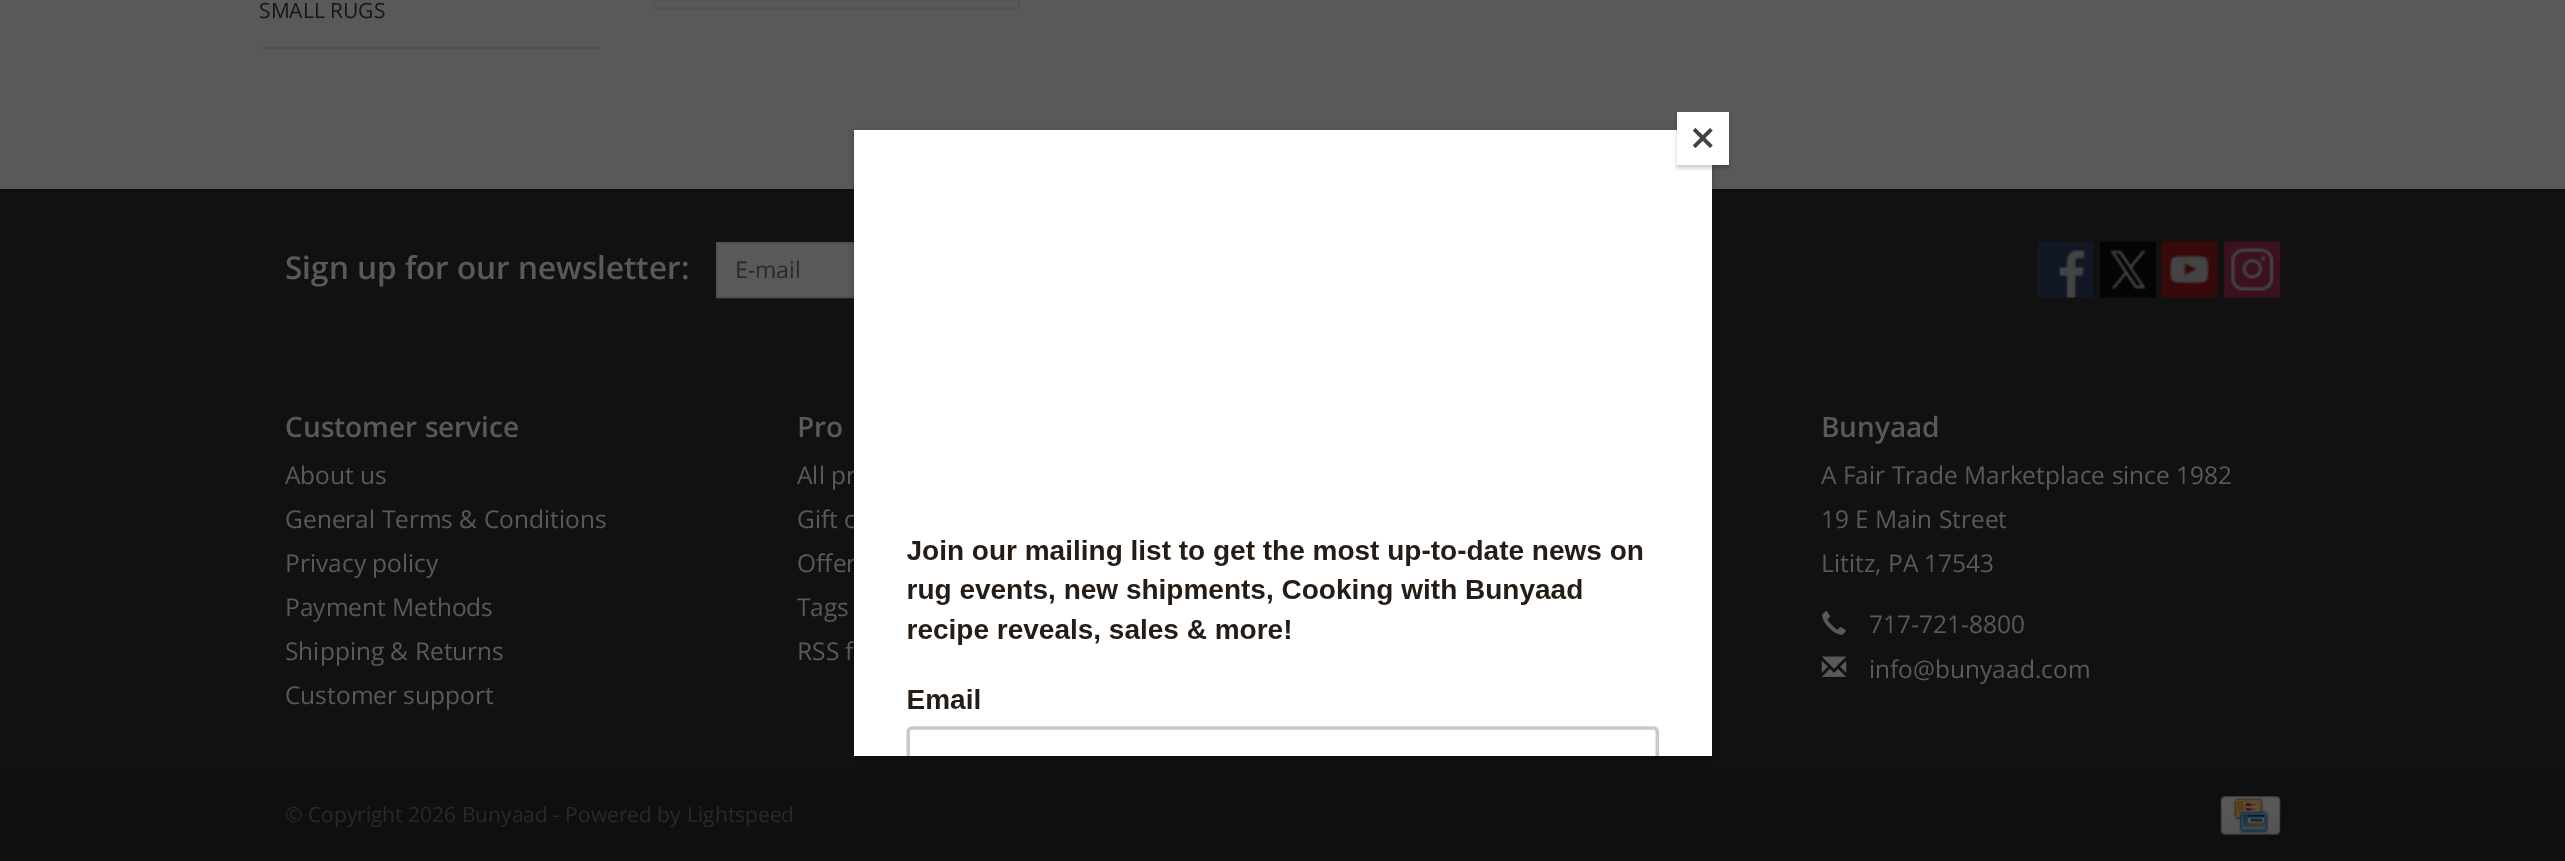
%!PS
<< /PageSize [2565 861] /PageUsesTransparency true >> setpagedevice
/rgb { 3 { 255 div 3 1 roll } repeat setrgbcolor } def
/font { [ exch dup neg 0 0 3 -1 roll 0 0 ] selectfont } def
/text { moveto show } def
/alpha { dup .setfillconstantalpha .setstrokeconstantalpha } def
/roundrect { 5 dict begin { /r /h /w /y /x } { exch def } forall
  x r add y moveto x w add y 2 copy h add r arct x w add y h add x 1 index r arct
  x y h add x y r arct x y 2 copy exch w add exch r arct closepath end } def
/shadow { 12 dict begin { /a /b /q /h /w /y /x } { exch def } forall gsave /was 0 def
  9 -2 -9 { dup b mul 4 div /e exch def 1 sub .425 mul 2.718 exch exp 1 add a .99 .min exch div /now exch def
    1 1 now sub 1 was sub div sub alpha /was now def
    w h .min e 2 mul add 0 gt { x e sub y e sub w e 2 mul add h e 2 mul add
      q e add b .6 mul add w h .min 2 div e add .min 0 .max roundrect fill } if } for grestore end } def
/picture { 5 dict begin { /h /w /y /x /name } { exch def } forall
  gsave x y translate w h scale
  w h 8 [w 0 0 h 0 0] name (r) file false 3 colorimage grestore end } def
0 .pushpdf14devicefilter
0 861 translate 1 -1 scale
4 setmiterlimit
89 89 89 rgb
0 0 2565 861 rectfill
82 82 82 rgb
259 47 341 2 rectfill
2 setlinewidth
654 -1 365 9 rectstroke
17 17 17 rgb
0 191 2565 579 rectfill
15 15 15 rgb
0 189 2565 2 rectfill
89 89 89 rgb
718 244 136 52 rectfill
82 82 82 rgb
717 243 278 54 rectstroke
(img_01.rgb) 2037 241 56 57 picture
(img_02.rgb) 2100 241 56 57 picture
(img_03.rgb) 2161 241 57 57 picture
(img_04.rgb) 2224 241 57 57 picture
(img_05.rgb) 1822 611 24 24 picture
(img_06.rgb) 1821 656 26 21 picture
14 14 14 rgb
0 770 2565 2 rectfill
15 15 15 rgb
0 772 2565 89 rectfill
(img_07.rgb) 2220 796 61 39 picture
0 0 0 rgb
854 133 858 627 0 3.5 0.2 shadow
/OpenSans-Regular 21 font
22 22 22 rgb
(SMALL RUGS) 259 18 text
/OpenSans-SemiBold 31.5 font
89 89 89 rgb
(Sign up for our newsletter:) 285 279 text
/OpenSans-Regular 23 font
41 41 41 rgb
(E-mail) 735 278 text
/OpenSans-SemiBold 28 font
89 89 89 rgb
(Customer service) 285 437 text
/OpenSans-Regular 24.5 font
(About us) 285 484 text
(General Terms & Conditions) 285 528 text
(Privacy policy) 285 572 text
(Payment Methods) 285 616 text
(Shipping & Returns) 285 660 text
(Customer support) 285 704 text
/OpenSans-SemiBold 28 font
(Pro) 797 437 text
/OpenSans-Regular 24.5 font
(All pr) 797 484 text
(Gift c) 797 528 text
(Offer) 797 572 text
(Tags) 797 616 text
(RSS f) 797 660 text
/OpenSans-SemiBold 28 font
(Bunyaad) 1821 437 text
/OpenSans-Regular 24.5 font
(A Fair Trade Marketplace since 1982) 1821 484 text
(19 E Main Street) 1821 528 text
(Lititz, PA 17543) 1821 572 text
(717-721-8800) 1869 633 text
(info@bunyaad.com) 1869 678 text
/OpenSans-Regular 21 font
41 41 41 rgb
(© Copyright 2026 Bunyaad - Powered by) 285 822 text
(Lightspeed) 687 822 text
(img_08.rgb) 854 130 858 626 picture
0 0 0 rgb
1677 116 52 52 0 2 0.2 shadow
255 255 255 rgb
1677 112 52 53 rectfill
65 65 65 rgb
1710 128 moveto 2.5 2.5 rlineto -17 17.5 rlineto -2.5 -2.5 rlineto closepath fill
1693 130.5 moveto 2.5 -2.5 rlineto 17 17.5 rlineto -2.5 2.5 rlineto closepath fill
.poppdf14devicefilter showpage
